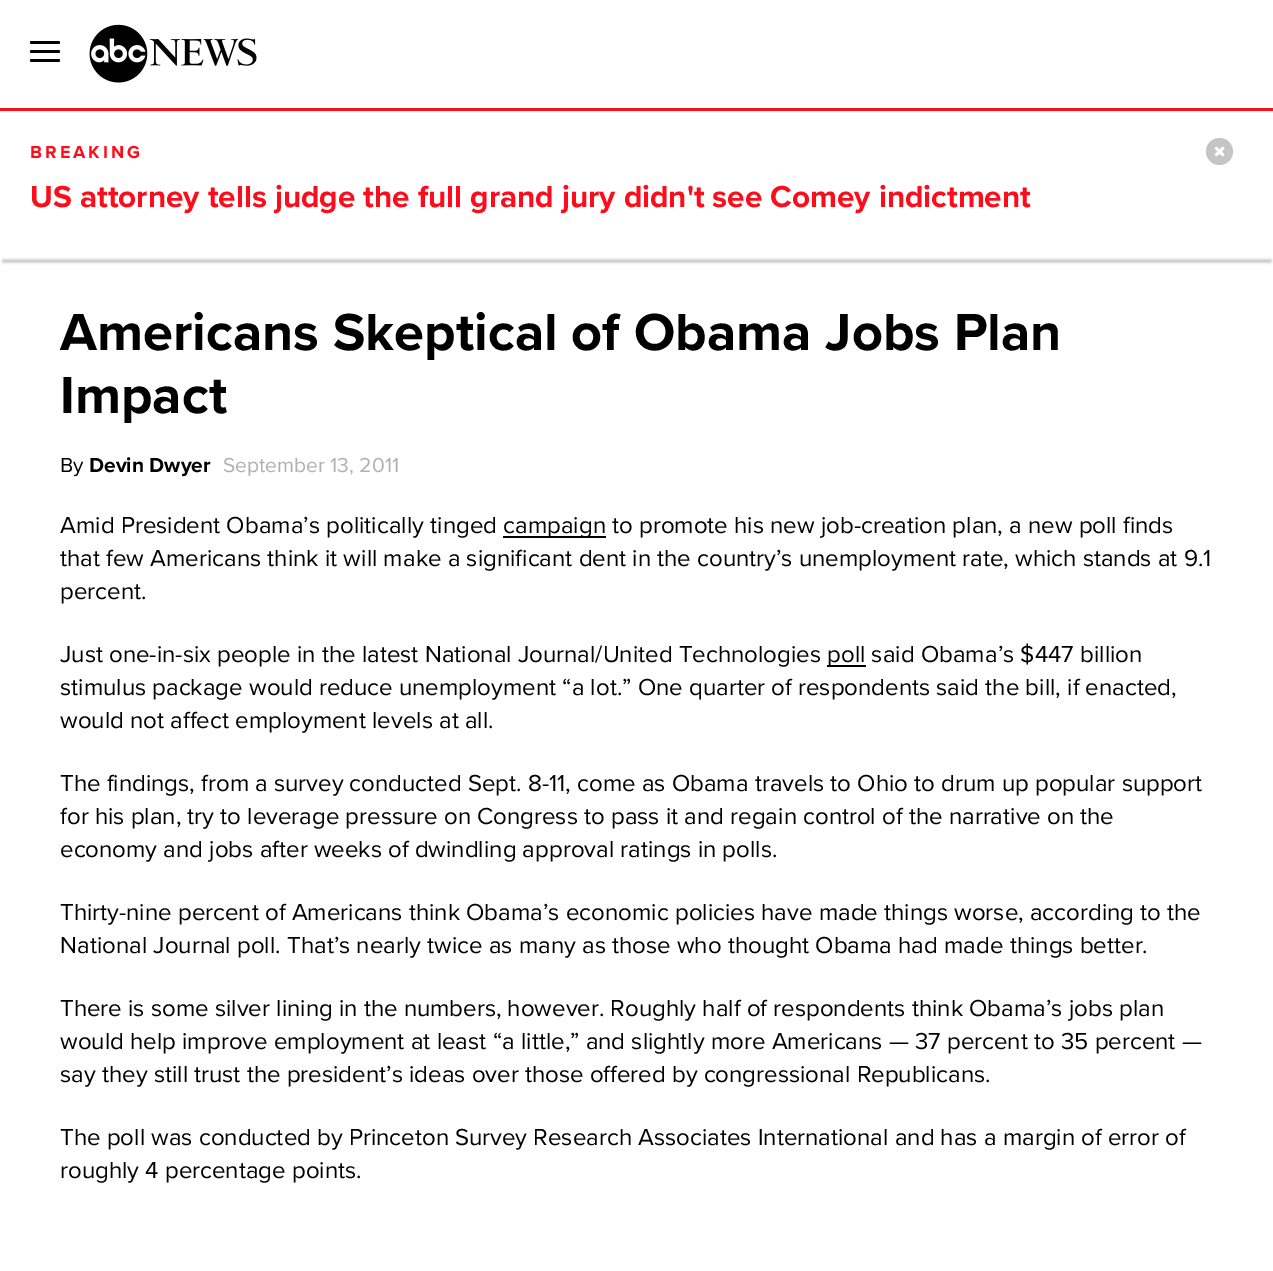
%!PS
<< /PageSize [1273 1271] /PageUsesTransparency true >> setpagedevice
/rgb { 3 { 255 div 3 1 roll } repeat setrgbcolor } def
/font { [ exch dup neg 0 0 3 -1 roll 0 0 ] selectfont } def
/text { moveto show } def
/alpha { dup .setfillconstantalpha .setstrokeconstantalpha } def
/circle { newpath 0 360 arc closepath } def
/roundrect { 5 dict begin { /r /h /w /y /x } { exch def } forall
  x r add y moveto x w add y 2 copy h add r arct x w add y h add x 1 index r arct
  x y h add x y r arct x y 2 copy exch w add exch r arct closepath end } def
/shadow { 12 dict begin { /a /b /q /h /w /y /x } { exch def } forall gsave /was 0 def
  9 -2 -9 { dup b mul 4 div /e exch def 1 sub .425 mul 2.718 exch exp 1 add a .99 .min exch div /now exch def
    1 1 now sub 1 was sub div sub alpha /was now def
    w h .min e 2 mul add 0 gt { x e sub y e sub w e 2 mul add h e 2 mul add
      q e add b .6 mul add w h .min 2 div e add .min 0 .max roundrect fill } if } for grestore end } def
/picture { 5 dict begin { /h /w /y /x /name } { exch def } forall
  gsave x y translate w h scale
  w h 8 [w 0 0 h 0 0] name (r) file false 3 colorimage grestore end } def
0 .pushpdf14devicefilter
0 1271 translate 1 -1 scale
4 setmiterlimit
255 255 255 rgb
0 0 1273 1271 rectfill
252 13 27 rgb
0 108 1273 3 rectfill
0 0 0 rgb
30 50 30 3 1.5 roundrect fill
30 41 30 3 1.5 roundrect fill
30 59 30 3 1.5 roundrect fill
(img_01.rgb) 89 24 168 59 picture
197 197 197 rgb
1219.5 151.5 13.5 circle fill
255 255 255 rgb
1217.5 147.5 moveto 3 3 rlineto 1 1 4.5 3.5 3.5 5 rcurveto -1.5 2.5 -5.5 -3 -6.5 -4 rcurveto -2.5 -2.5 rlineto -0.5 -1.5 1.5 -3 2.5 -1.5 rcurveto closepath fill
1215.5 153.5 moveto 3 -3 rlineto 1 -1 3.5 -4.5 5 -3.5 rcurveto 2.5 1.5 -3 5.5 -4 6.5 rcurveto -2.5 2.5 rlineto -1.5 0.5 -3 -1.5 -1.5 -2.5 rcurveto closepath fill
0 0 0 rgb
3 260 1268 2 0 1.5 0.3 shadow
503 536 103 2 rectfill
827 665 39 2 rectfill
/ProximaNova-Bold 18 font
252 13 27 rgb
30 158 moveto 3 0 (BREAKING) ashow
/ProximaNova-Bold 31.5 font
(US attorney tells judge the full grand jury didn't see Comey indictment) 30 207 text
/ProximaNova-Bold 54 font
0 0 0 rgb
(Americans Skeptical of Obama Jobs Plan) 60 350 text
(Impact) 60 413 text
/ProximaNova-Regular 21 font
(By) 60 472 text
/ProximaNova-Bold 21 font
(Devin Dwyer) 89 472 text
/ProximaNova-Regular 21 font
178 176 177 rgb
(September 13, 2011) 223 472 text
/ProximaNova-Regular 24 font
0 0 0 rgb
(Amid President Obama’s politically tinged) 60 533 text
(campaign to promote his new job-creation plan, a new poll finds) 503 533 text
(that few Americans think it will make a significant dent in the country’s unemployment rate, which stands at 9.1) 60 566 text
(percent.) 60 599 text
(Just one-in-six people in the latest National Journal/United Technologies) 60 662 text
(poll said Obama’s $447 billion) 827 662 text
(stimulus package would reduce unemployment “a lot.” One quarter of respondents said the bill, if enacted,) 60 695 text
(would not affect employment levels at all.) 60 728 text
(The findings, from a survey conducted Sept. 8-11, come as Obama travels to Ohio to drum up popular support) 60 791 text
(for his plan, try to leverage pressure on Congress to pass it and regain control of the narrative on the) 60 824 text
(economy and jobs after weeks of dwindling approval ratings in polls.) 60 857 text
(Thirty-nine percent of Americans think Obama’s economic policies have made things worse, according to the) 60 920 text
(National Journal poll. That’s nearly twice as many as those who thought Obama had made things better.) 60 953 text
(There is some silver lining in the numbers, however. Roughly half of respondents think Obama’s jobs plan) 60 1016 text
(would help improve employment at least “a little,” and slightly more Americans — 37 percent to 35 percent —) 60 1049 text
(say they still trust the president’s ideas over those offered by congressional Republicans.) 60 1082 text
(The poll was conducted by Princeton Survey Research Associates International and has a margin of error of) 60 1145 text
(roughly 4 percentage points.) 60 1178 text
.poppdf14devicefilter showpage
